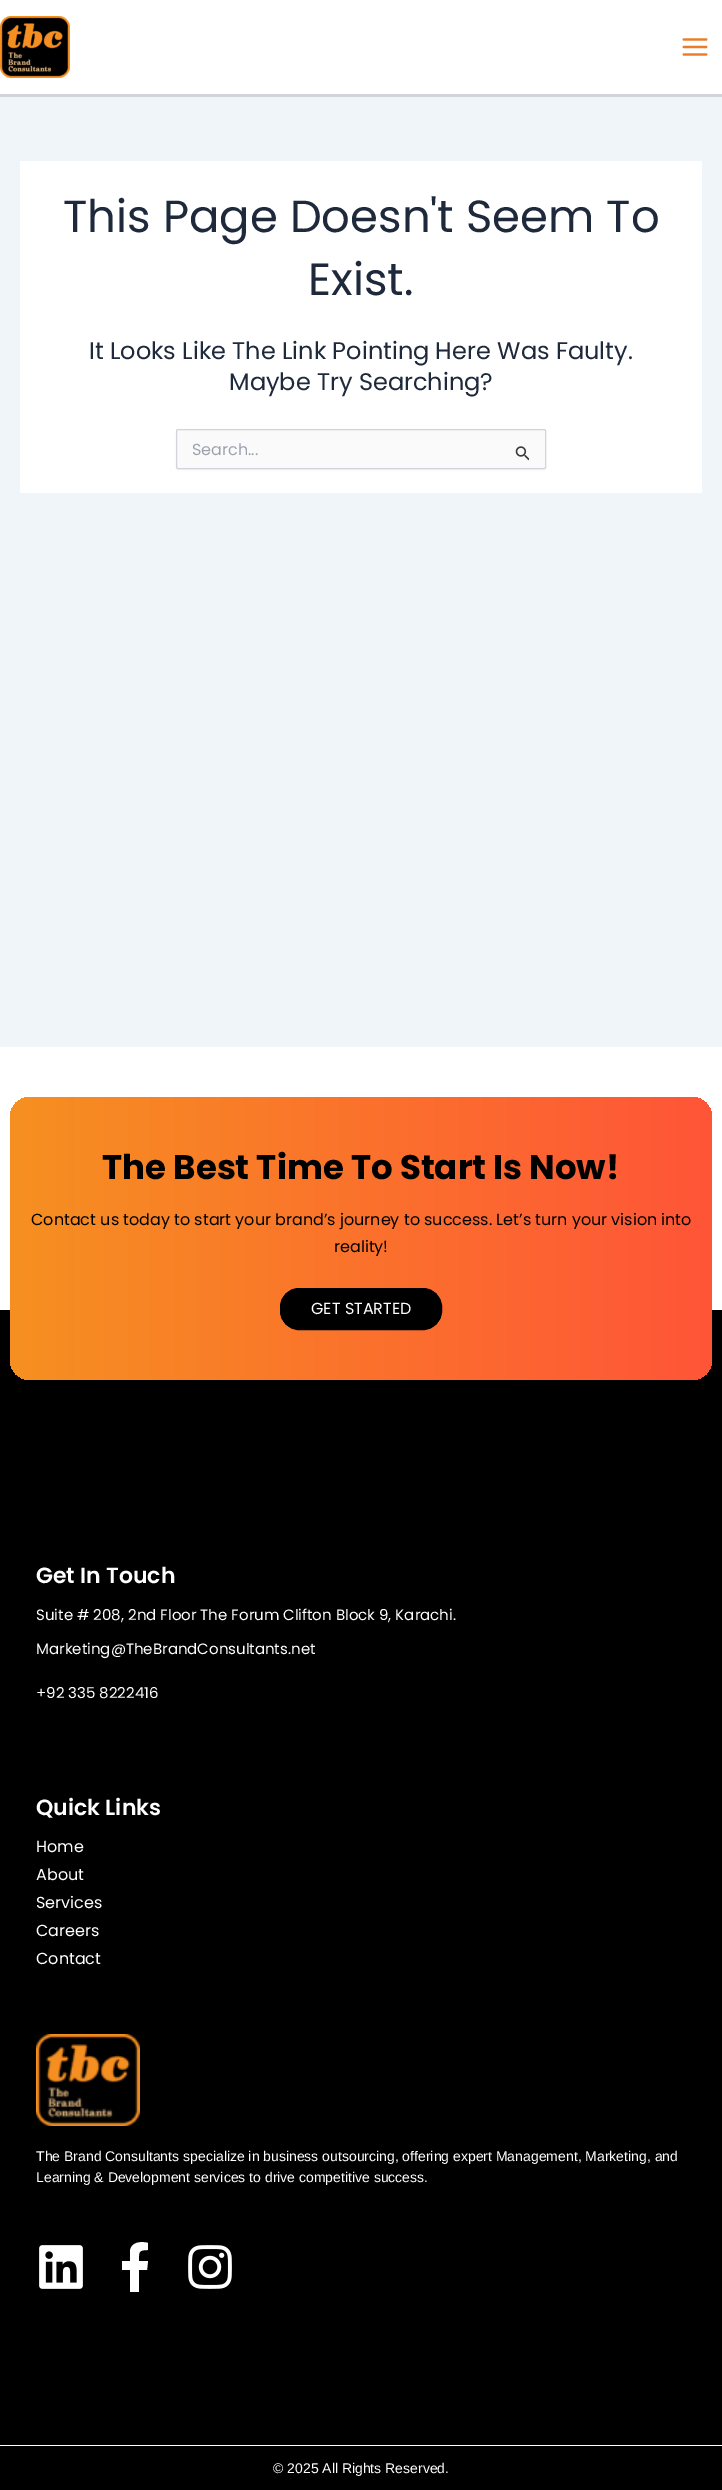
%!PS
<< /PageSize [722 2490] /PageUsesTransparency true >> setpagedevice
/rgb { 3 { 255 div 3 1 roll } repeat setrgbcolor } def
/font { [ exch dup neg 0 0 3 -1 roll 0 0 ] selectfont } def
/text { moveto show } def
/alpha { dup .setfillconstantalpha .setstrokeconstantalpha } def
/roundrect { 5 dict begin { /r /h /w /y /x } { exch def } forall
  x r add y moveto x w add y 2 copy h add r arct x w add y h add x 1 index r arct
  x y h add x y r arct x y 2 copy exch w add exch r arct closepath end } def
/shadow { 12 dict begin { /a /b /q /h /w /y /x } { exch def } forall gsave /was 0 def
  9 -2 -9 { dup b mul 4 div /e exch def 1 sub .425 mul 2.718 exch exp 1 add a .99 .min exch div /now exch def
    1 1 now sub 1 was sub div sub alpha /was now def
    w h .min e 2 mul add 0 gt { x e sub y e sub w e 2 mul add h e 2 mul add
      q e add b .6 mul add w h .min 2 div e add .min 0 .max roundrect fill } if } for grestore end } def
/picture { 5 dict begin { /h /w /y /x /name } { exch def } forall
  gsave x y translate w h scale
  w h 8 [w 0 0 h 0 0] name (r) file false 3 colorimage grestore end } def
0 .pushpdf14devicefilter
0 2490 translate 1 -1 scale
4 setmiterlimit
240 245 250 rgb
0 0 722 2490 rectfill
255 255 255 rgb
0 0 722 94 rectfill
209 213 219 rgb
0 94 722 3 rectfill
(img_01.rgb) 0 16 70 62 picture
(img_02.rgb) 682 38 26 18 picture
255 255 255 rgb
20 161 682 332 rectfill
0 0 0 rgb
176 430 370 40 2 1 0.05 shadow
250 250 250 rgb
176.5 429.5 369 39 1.5 roundrect gsave fill grestore
209 213 219 rgb
stroke
(img_03.rgb) 515 446 14 15 picture
255 255 255 rgb
0 1047 722 263 rectfill
0 0 0 rgb
0 1310 722 1135 rectfill
gsave 10 1097 702 283 20 roundrect clip newpath
<< /ShadingType 2 /ColorSpace /DeviceRGB /Coords [10 1239 712 1239] /Extend [true true] /Function << /FunctionType 2 /Domain [0 1] /C0 [0.965 0.565 0.129] /C1 [1 0.333 0.22] /N 1 >> >> shfill grestore
280.5 1288.5 161 41 18.5 roundrect gsave fill grestore
stroke
(img_04.rgb) 36 2034 104 92 picture
(img_05.rgb) 39 2245 44 44 picture
255 255 255 rgb
147 2270 moveto 1 -9 rlineto -9 0 rlineto 0 -9 -1 -11 9 -11 rcurveto 0 -7 rlineto -7 -2 -17 -1 -18 8 rcurveto 0 10 rlineto -8 0 rlineto 0 9 rlineto 8 0 rlineto 0 22 rlineto 9 0 rlineto 0 -22 rlineto closepath fill
(img_06.rgb) 188 2245 44 44 picture
0 0 0 rgb
0 2446 722 44 rectfill
255 255 255 rgb
0 2445 722 1 rectfill
/Poppins-Regular 45 font
30 41 59 rgb
(This Page Doesn't Seem To) 63 232 text
(Exist.) 308 295 text
/Poppins-Regular 24 font
(It Looks Like The Link Pointing Here Was Faulty.) 89 359 text
(Maybe Try Searching?) 229 390 text
/Poppins-Regular 16 font
156 163 175 rgb
(Search...) 192 455 text
/Poppins-Bold 34 font
0 0 0 rgb
(The Best Time To Start Is Now!) 102 1179 text
/Poppins-Regular 16 font
(Contact us today to start your brand’s journey to success. Let’s turn your vision into) 31 1225 text
(reality!) 334 1252 text
255 255 255 rgb
(GET STARTED) 311 1314 text
/Poppins-SemiBold 22 font
(Get In Touch) 36 1583 text
/Poppins-Regular 15 font
(Suite # 208, 2nd Floor The Forum Clifton Block 9, Karachi.) 36 1620 text
(Marketing@TheBrandConsultants.net) 36 1654 text
(+92 335 8222416) 36 1698 text
/Poppins-SemiBold 22 font
(Quick Links) 36 1815 text
/Poppins-Regular 16 font
(Home) 36 1852 text
(About) 36 1880 text
(Services) 36 1908 text
(Careers) 36 1936 text
(Contact) 36 1964 text
/LiberationSans-Regular 14 font
(The Brand Consultants specialize in business outsourcing, offering expert Management, Marketing, and) 36 2161 text
(Learning & Development services to drive competitive success.) 36 2182 text
(© 2025 All Rights Reserved.) 273 2473 text
.poppdf14devicefilter showpage
